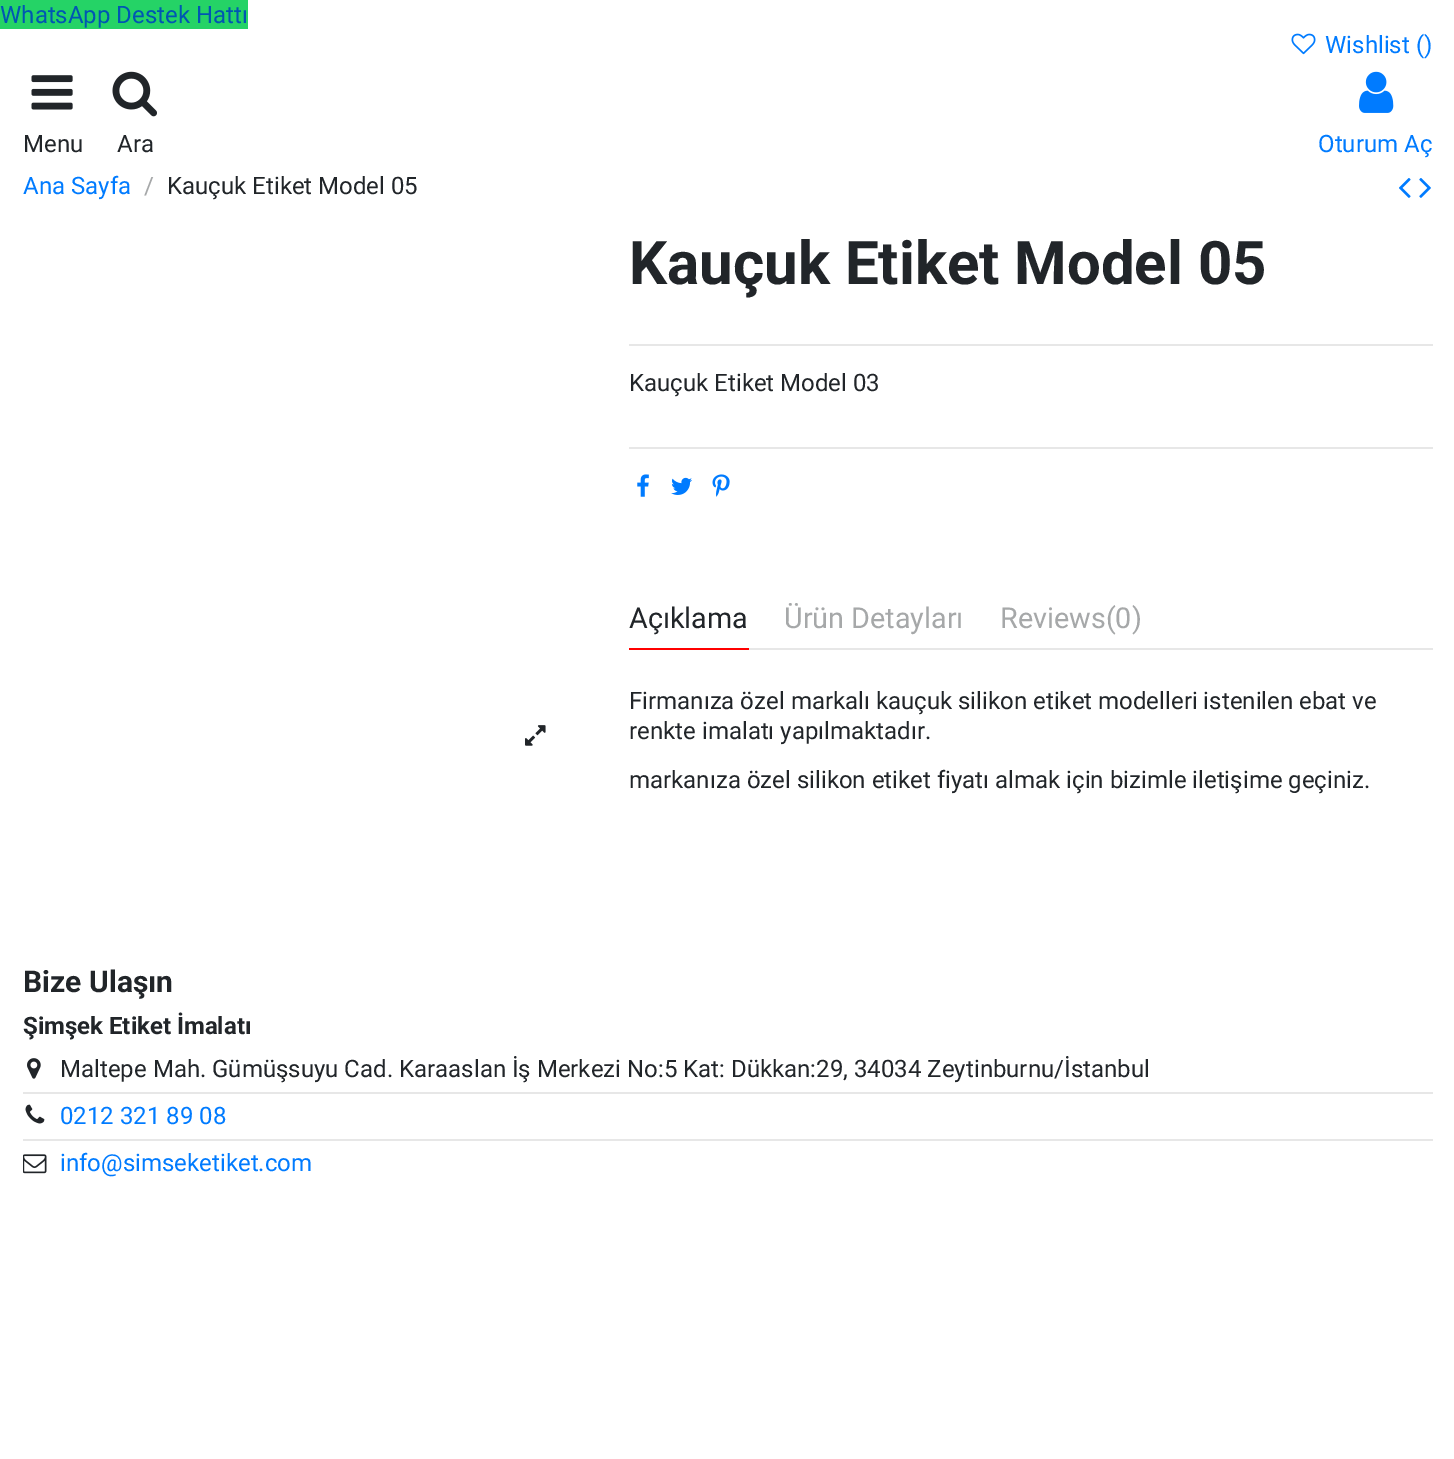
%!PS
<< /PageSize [1454 1459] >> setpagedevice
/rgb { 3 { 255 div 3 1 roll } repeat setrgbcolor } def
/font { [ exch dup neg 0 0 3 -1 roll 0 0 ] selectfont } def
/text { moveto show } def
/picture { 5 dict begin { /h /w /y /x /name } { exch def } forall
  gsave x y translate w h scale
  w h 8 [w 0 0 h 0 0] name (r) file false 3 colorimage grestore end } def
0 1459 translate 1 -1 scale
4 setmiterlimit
255 255 255 rgb
0 0 1454 1459 rectfill
37 211 102 rgb
0 0 248 29 rectfill
(img_01.rgb) 1291 33 25 22 picture
(img_02.rgb) 31 75 42 35 picture
(img_03.rgb) 112 71 45 46 picture
(img_04.rgb) 1359 71 35 42 picture
(img_05.rgb) 1399 178 12 20 picture
(img_06.rgb) 1419 178 12 20 picture
(img_07.rgb) 525 725 21 21 picture
231 231 231 rgb
629 344 804 2 rectfill
629 447 804 2 rectfill
(img_08.rgb) 637 474 12 23 picture
(img_09.rgb) 671 477 21 18 picture
(img_10.rgb) 712 474 18 23 picture
749 648 684 2 rectfill
255 0 0 rgb
629 648 120 2 rectfill
(img_11.rgb) 27 1058 14 21 picture
231 231 231 rgb
23 1092 1410 2 rectfill
(img_12.rgb) 25 1104 20 20 picture
23 1139 1410 2 rectfill
(img_13.rgb) 23 1154 24 20 picture
/Roboto-Regular 24 font
0 86 179 rgb
(WhatsApp Destek Hattı) 0 23 text
0 123 255 rgb
(Wishlist \(\)) 1325 53 text
33 37 41 rgb
(Menu) 23 152 text
(Ara) 117 152 text
0 123 255 rgb
(Oturum Aç) 1318 152 text
(Ana Sayfa) 23 194 text
166 168 169 rgb
(/) 144 194 text
33 37 41 rgb
(Kauçuk Etiket Model 05) 167 194 text
/Roboto-Bold 60 font
(Kauçuk Etiket Model 05) 629 284 text
/Roboto-Regular 24 font
(Kauçuk Etiket Model 03) 629 391 text
/Roboto-Regular 28.75 font
(Açıklama) 629 628 text
166 168 169 rgb
(Ürün Detayları) 784 628 text
(Reviews\(0\)) 1000 628 text
/Roboto-Regular 24 font
33 37 41 rgb
(Firmanıza özel markalı kauçuk silikon etiket modelleri istenilen ebat ve) 629 709 text
(renkte imalatı yapılmaktadır.) 629 739 text
(markanıza özel silikon etiket fiyatı almak için bizimle iletişime geçiniz.) 629 788 text
/Roboto-Bold 30 font
(Bize Ulaşın) 23 992 text
/Roboto-Bold 24 font
(Şimşek Etiket İmalatı) 23 1034 text
/Roboto-Regular 24 font
(Maltepe Mah. Gümüşsuyu Cad. Karaaslan İş Merkezi No:5 Kat: Dükkan:29, 34034 Zeytinburnu/İstanbul) 60 1077 text
0 123 255 rgb
(0212 321 89 08) 60 1124 text
(info@simseketiket.com) 60 1171 text
showpage
